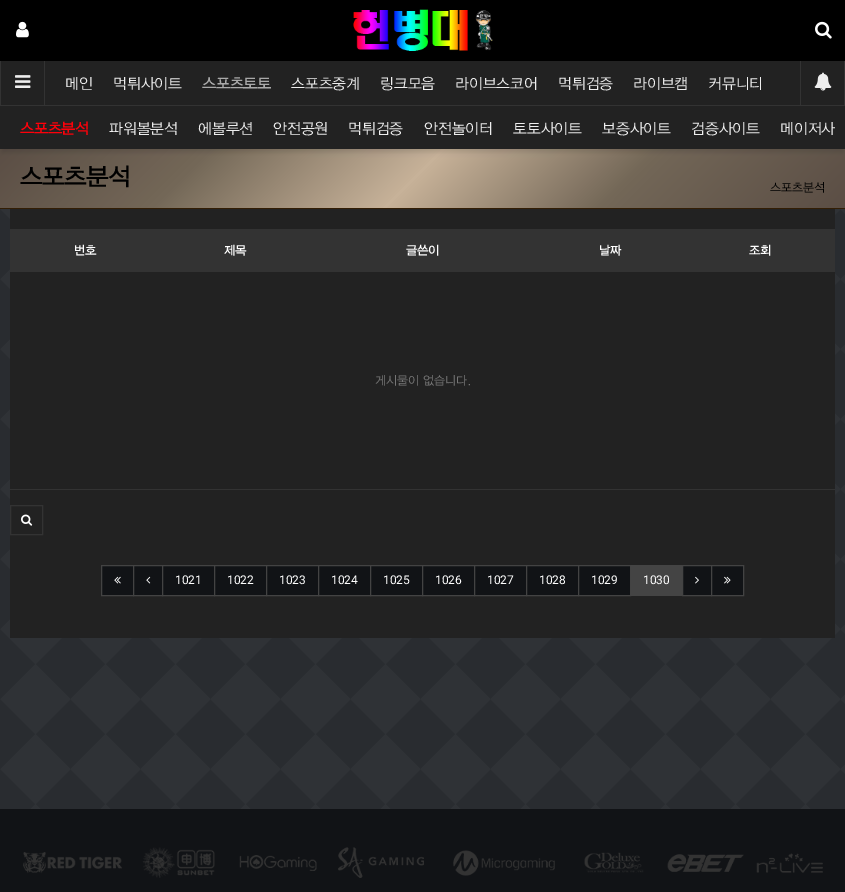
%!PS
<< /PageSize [845 892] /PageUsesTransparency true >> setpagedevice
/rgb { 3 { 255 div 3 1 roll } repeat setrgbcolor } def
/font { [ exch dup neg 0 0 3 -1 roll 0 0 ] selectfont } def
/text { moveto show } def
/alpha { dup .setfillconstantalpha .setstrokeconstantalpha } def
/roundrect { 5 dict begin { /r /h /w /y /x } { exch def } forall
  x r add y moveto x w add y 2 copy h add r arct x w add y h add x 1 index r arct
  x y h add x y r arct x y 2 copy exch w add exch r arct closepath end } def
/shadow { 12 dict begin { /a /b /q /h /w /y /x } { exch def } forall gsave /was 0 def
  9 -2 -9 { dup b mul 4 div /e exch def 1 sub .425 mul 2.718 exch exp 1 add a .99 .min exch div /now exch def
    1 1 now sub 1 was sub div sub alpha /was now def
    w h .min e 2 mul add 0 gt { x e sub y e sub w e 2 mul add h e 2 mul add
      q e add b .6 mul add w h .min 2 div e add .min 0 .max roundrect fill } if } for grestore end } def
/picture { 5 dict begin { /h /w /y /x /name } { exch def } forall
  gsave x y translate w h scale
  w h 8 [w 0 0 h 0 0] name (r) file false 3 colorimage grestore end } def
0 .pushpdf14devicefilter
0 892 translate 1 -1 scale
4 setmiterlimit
17 19 22 rgb
0 0 845 892 rectfill
0 0 0 rgb
0 0 845 61 rectfill
(img_01.rgb) 16 21 13 17 picture
(img_02.rgb) 353 9 140 42 picture
(img_03.rgb) 815 21 17 18 picture
gsave 0 149 moveto 845 0 rlineto 0 59 rlineto -845 0 rlineto closepath clip newpath
<< /ShadingType 2 /ColorSpace /DeviceRGB /Coords [196 -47 649 405] /Extend [true true] /Function << /FunctionType 3 /Domain [0 1] /Functions [<< /FunctionType 2 /Domain [0 1] /C0 [0.357 0.306 0.271] /C1 [0.451 0.404 0.341] /N 1 >> << /FunctionType 2 /Domain [0 1] /C0 [0.451 0.404 0.341] /C1 [0.78 0.698 0.6] /N 1 >> << /FunctionType 2 /Domain [0 1] /C0 [0.78 0.698 0.6] /C1 [0.451 0.404 0.341] /N 1 >> << /FunctionType 2 /Domain [0 1] /C0 [0.451 0.404 0.341] /C1 [0.357 0.306 0.271] /N 1 >>] /Bounds [0.23 0.49 0.73] /Encode [0 1 0 1 0 1 0 1] >> >> shfill grestore
25 25 25 rgb
2 68 841 84 0 2.5 0.15 shadow
34 34 34 rgb
1 61 843 44 rectfill
51 51 51 rgb
0 61 1 45 rectfill
(img_04.rgb) 15 75 16 13 picture
44 61 1 45 rectfill
844 61 1 45 rectfill
800 61 1 45 rectfill
(img_05.rgb) 814 72 18 19 picture
34 34 34 rgb
0 106 845 43 rectfill
51 51 51 rgb
0 105 845 1 rectfill
51 30 5 rgb
0 208 845 1 rectfill
(img_06.rgb) 0 209 845 600 picture
34 34 34 rgb
10 209 825 429 rectfill
51 51 51 rgb
10 489 825 1 rectfill
10 229 825 43 rectfill
10.5 505.5 32 29 rectstroke
(img_07.rgb) 21 514 12 12 picture
17 19 22 rgb
101.5 565.5 moveto 32 0 rlineto 0 30 rlineto -32 0 rlineto closepath gsave fill grestore
67 67 67 rgb
stroke
(img_08.rgb) 114 576 7 8 picture
17 19 22 rgb
133.5 565.5 moveto 29 0 rlineto 0 30 rlineto -29 0 rlineto closepath gsave fill grestore
67 67 67 rgb
stroke
(img_09.rgb) 146 576 5 8 picture
17 19 22 rgb
162.5 565.5 moveto 52 0 rlineto 0 30 rlineto -52 0 rlineto closepath gsave fill grestore
67 67 67 rgb
stroke
17 19 22 rgb
214.5 565.5 moveto 52 0 rlineto 0 30 rlineto -52 0 rlineto closepath gsave fill grestore
67 67 67 rgb
stroke
17 19 22 rgb
266.5 565.5 moveto 52 0 rlineto 0 30 rlineto -52 0 rlineto closepath gsave fill grestore
67 67 67 rgb
stroke
17 19 22 rgb
318.5 565.5 moveto 52 0 rlineto 0 30 rlineto -52 0 rlineto closepath gsave fill grestore
67 67 67 rgb
stroke
17 19 22 rgb
370.5 565.5 moveto 52 0 rlineto 0 30 rlineto -52 0 rlineto closepath gsave fill grestore
67 67 67 rgb
stroke
17 19 22 rgb
422.5 565.5 moveto 52 0 rlineto 0 30 rlineto -52 0 rlineto closepath gsave fill grestore
67 67 67 rgb
stroke
17 19 22 rgb
474.5 565.5 moveto 52 0 rlineto 0 30 rlineto -52 0 rlineto closepath gsave fill grestore
67 67 67 rgb
stroke
17 19 22 rgb
526.5 565.5 moveto 52 0 rlineto 0 30 rlineto -52 0 rlineto closepath gsave fill grestore
67 67 67 rgb
stroke
17 19 22 rgb
578.5 565.5 moveto 52 0 rlineto 0 30 rlineto -52 0 rlineto closepath gsave fill grestore
67 67 67 rgb
stroke
68 68 68 rgb
631 565 51 31 rectfill
17 19 22 rgb
682.5 565.5 moveto 29 0 rlineto 0 30 rlineto -29 0 rlineto closepath gsave fill grestore
67 67 67 rgb
stroke
(img_10.rgb) 695 576 4 8 picture
17 19 22 rgb
711.5 565.5 moveto 32 0 rlineto 0 30 rlineto -32 0 rlineto closepath gsave fill grestore
67 67 67 rgb
stroke
(img_11.rgb) 724 576 7 8 picture
(img_12.rgb) 23 847 800 31 picture
/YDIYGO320-Regular 15 font
238 238 238 rgb
(메인) 65 88 text
(먹튀사이트) 113 88 text
/YDIYGO320-Bold 15 font
169 169 169 rgb
(스포츠토토) 202 88 text
/YDIYGO320-Regular 15 font
238 238 238 rgb
(스포츠중계) 291 88 text
(링크모음) 380 88 text
(라이브스코어) 455 88 text
(먹튀검증) 558 88 text
(라이브캠) 633 88 text
(커뮤니티) 708 88 text
/YDIYGO320-Bold 15 font
255 0 10 rgb
(스포츠분석) 20 133 text
/YDIYGO320-Regular 15 font
238 238 238 rgb
(파워볼분석) 109 133 text
(에볼루션) 198 133 text
(안전공원) 273 133 text
(먹튀검증) 348 133 text
(안전놀이터) 424 133 text
(토토사이트) 513 133 text
(보증사이트) 602 133 text
(검증사이트) 691 133 text
(메이저사) 780 133 text
/YDIYGO320-Bold 24 font
0 0 0 rgb
(스포츠분석) 20 184 text
/YDIYGO320-Regular 12 font
(스포츠분석) 770 191 text
/YDIYGO320-Bold 12 font
255 255 255 rgb
(번호) 74 254 text
(제목) 224 254 text
(글쓴이) 406 254 text
(날짜) 599 254 text
(조회) 749 254 text
/YDIYGO320-Regular 12 font
119 119 119 rgb
(게시물이 없습니다.) 375 384 text
/Roboto-Regular 12 font
255 255 255 rgb
(1021) 175 584 text
(1022) 227 584 text
(1023) 279 584 text
(1024) 331 584 text
(1025) 383 584 text
(1026) 435 584 text
(1027) 487 584 text
(1028) 539 584 text
(1029) 591 584 text
(1030) 643 584 text
.poppdf14devicefilter showpage
